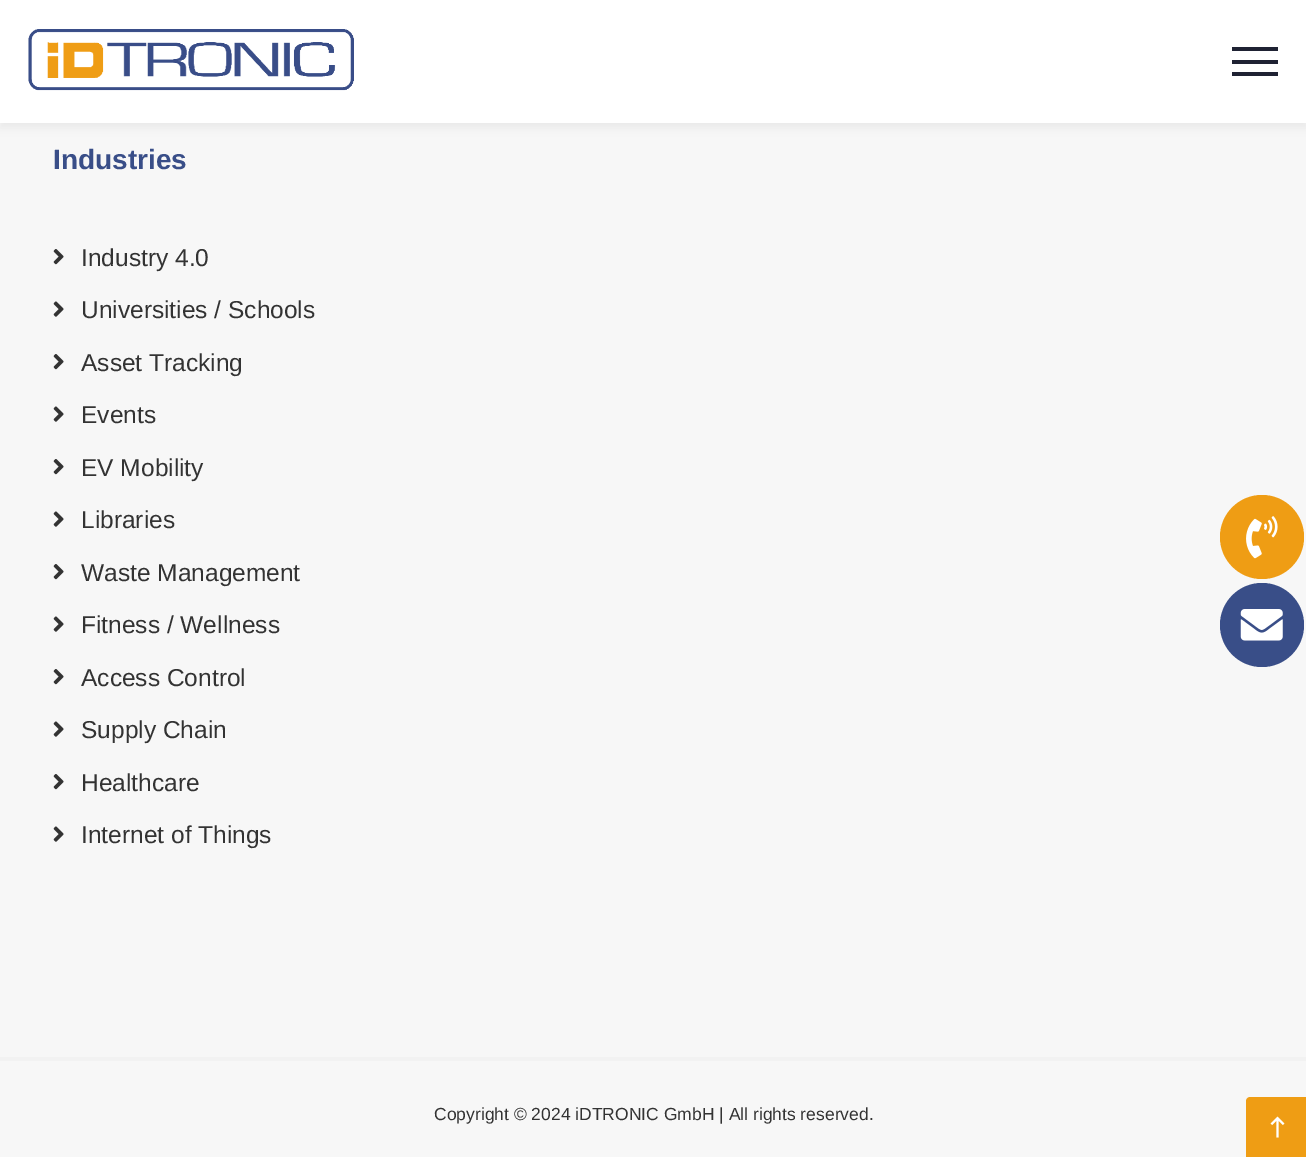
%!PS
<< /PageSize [1306 1157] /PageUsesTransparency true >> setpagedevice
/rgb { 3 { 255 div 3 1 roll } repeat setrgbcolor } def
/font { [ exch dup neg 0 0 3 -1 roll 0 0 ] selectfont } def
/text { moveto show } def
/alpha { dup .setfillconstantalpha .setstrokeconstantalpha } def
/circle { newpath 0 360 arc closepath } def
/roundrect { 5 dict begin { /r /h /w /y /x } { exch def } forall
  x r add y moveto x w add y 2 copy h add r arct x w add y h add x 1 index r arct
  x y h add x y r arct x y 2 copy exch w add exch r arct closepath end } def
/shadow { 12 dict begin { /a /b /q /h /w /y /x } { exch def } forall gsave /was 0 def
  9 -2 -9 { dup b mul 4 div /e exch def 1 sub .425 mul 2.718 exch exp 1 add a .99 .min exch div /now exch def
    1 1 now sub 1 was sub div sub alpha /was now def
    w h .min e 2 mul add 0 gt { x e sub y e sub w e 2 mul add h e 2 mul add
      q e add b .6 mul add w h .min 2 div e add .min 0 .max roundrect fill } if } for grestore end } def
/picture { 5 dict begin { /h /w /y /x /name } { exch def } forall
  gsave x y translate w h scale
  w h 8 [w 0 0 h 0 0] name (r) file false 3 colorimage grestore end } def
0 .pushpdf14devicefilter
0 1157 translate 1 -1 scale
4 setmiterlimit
247 247 247 rgb
0 0 1306 1157 rectfill
0 0 0 rgb
0 5 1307 123 0 5 0.05 shadow
255 255 255 rgb
0 0 1306 123 rectfill
(img_01.rgb) 28 29 326 62 picture
31 34 51 rgb
1232 47 46 4 rectfill
1232 60 46 4 rectfill
1232 72 46 4 rectfill
(img_02.rgb) 53 249 11 16 picture
(img_03.rgb) 53 301 11 16 picture
(img_02.rgb) 53 354 11 16 picture
(img_03.rgb) 53 406 11 16 picture
(img_02.rgb) 53 459 11 16 picture
(img_03.rgb) 53 511 11 16 picture
(img_02.rgb) 53 564 11 16 picture
(img_03.rgb) 53 616 11 16 picture
(img_02.rgb) 53 669 11 16 picture
(img_03.rgb) 53 721 11 16 picture
(img_02.rgb) 53 774 11 16 picture
(img_03.rgb) 53 826 11 16 picture
242 242 242 rgb
0 1057 1306 4 rectfill
239 157 20 rgb
1250 1097 moveto 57 0 rlineto 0 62 rlineto -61 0 rlineto 0 -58 rlineto 0 -2 2 -4 4 -4 rcurveto closepath fill
(img_04.rgb) 1270 1116 15 22 picture
1262 537 42 circle fill
(img_05.rgb) 1246 516 32 43 picture
57 78 136 rgb
1262 625 42 circle fill
(img_06.rgb) 1240 609 43 32 picture
/LiberationSans-Bold 28 font
(Industries) 53 169 text
/LiberationSans-Regular 24.5 font
51 51 51 rgb
(Industry 4.0) 81 266 text
(Universities / Schools) 81 318 text
(Asset Tracking) 81 371 text
(Events) 81 423 text
(EV Mobility) 81 476 text
(Libraries) 81 528 text
(Waste Management) 81 581 text
(Fitness / Wellness) 81 633 text
(Access Control) 81 686 text
(Supply Chain) 81 738 text
(Healthcare) 81 791 text
(Internet of Things) 81 843 text
/LiberationSans-Regular 17.5 font
(Copyright © 2024 iDTRONIC GmbH | All rights reserved.) 434 1120 text
.poppdf14devicefilter showpage
